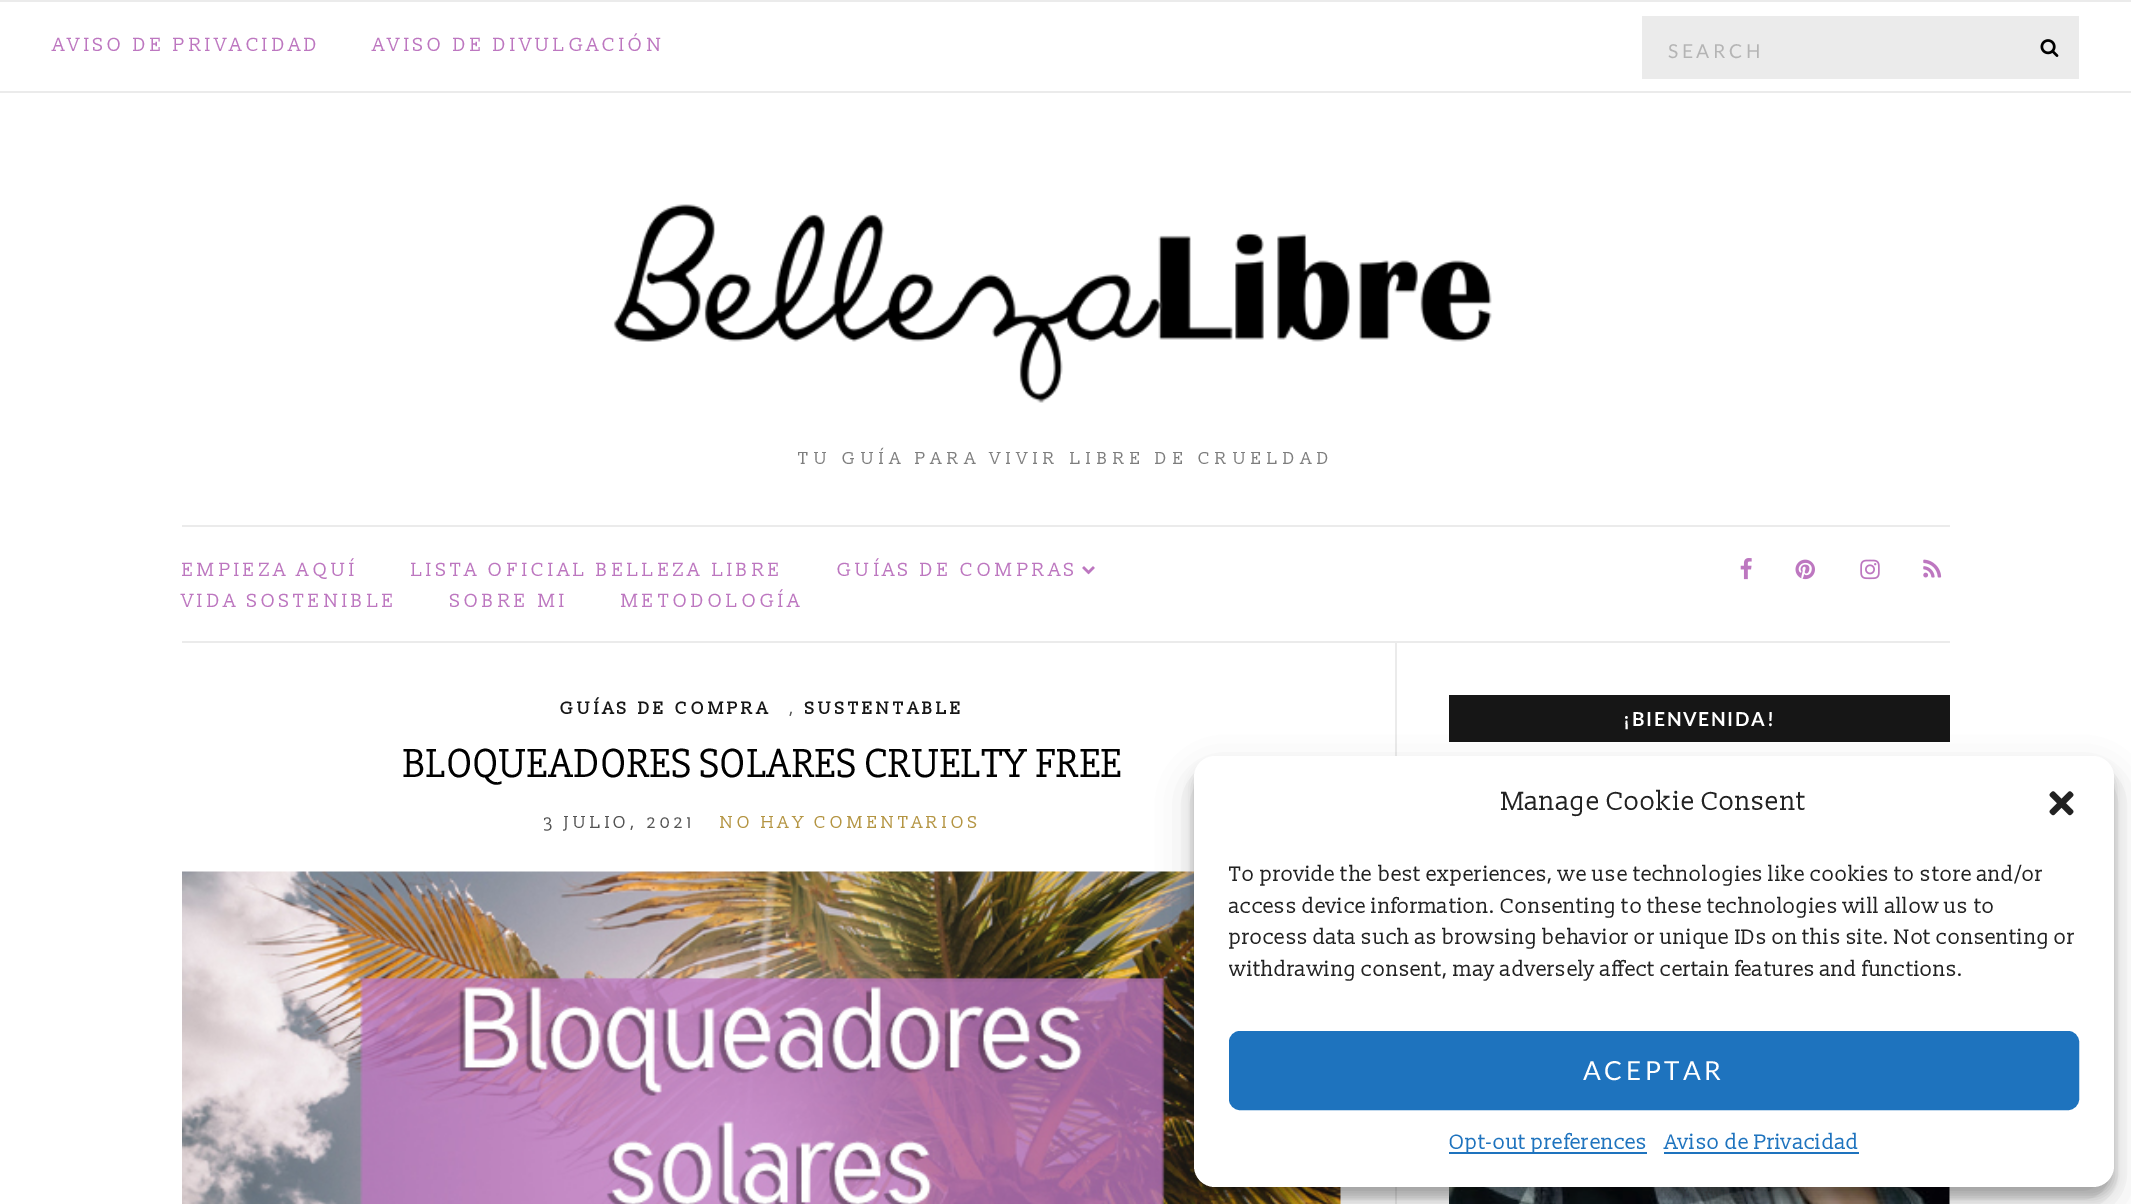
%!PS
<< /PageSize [2131 1204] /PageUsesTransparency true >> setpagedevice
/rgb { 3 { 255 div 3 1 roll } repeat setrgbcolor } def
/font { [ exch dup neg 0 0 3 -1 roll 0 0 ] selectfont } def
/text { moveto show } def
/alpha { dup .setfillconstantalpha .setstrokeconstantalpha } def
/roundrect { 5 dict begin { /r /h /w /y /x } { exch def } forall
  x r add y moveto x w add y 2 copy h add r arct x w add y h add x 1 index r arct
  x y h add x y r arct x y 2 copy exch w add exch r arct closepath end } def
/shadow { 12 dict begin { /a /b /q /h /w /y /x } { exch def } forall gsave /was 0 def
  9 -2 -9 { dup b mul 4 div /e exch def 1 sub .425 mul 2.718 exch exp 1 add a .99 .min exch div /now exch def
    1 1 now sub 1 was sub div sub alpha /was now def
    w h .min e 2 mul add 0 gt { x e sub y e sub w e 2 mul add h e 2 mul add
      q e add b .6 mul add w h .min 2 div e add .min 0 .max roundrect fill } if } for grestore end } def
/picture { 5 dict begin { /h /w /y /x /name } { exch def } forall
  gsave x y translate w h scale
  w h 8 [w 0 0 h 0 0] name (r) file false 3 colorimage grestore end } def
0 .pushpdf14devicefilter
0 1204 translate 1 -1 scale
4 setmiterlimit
255 255 255 rgb
0 0 2131 1204 rectfill
235 235 235 rgb
0 0 2131 2 rectfill
0 91 2131 2 rectfill
1642 16 437 63 rectfill
(img_01.rgb) 2040 39 19 18 picture
(img_02.rgb) 613 204 879 199 picture
182 525 1768 2 rectfill
182 641 1768 2 rectfill
(img_03.rgb) 1082 566 13 9 picture
(img_04.rgb) 1740 558 12 22 picture
(img_05.rgb) 1795 559 20 21 picture
(img_06.rgb) 1860 559 20 21 picture
(img_07.rgb) 1923 559 19 19 picture
(img_08.rgb) 182 871 1159 333 picture
1395 642 2 562 rectfill
22 22 22 rgb
1449 695 501 47 rectfill
(img_09.rgb) 1449 1187 501 17 picture
0 0 0 rgb
1194 767 920 430 21 5 0.23 shadow
1194 774 920 430 21 17.5 0.19 shadow
255 255 255 rgb
1194 756 920 431 21 roundrect fill
(img_10.rgb) 2049 791 25 25 picture
30 115 190 rgb
1230 1032 848 77 10 roundrect gsave fill grestore
2 setlinewidth
stroke
1449 1152 198 2 rectfill
1664 1152 195 2 rectfill
/Slabo13px-Regular 19.25 font
189 119 192 rgb
53 51 moveto 3.5 0 (AVISO DE PRIVACIDAD) ashow
373 51 moveto 3.5 0 (AVISO DE DIVULGACIÓN) ashow
/Lato-Regular 19.25 font
180 180 180 rgb
1668 58 moveto 3.5 0 (SEARCH) ashow
/Slabo13px-Regular 17.5 font
126 126 126 rgb
798 464 moveto 5.25 0 (TU GUÍA PARA VIVIR LIBRE DE CRUELDAD) ashow
/Slabo13px-Regular 19.25 font
189 119 192 rgb
182 576 moveto 3.5 0 (EMPIEZA AQUÍ) ashow
411 576 moveto 3.5 0 (LISTA OFICIAL BELLEZA LIBRE) ashow
837 576 moveto 3.5 0 (GUÍAS DE COMPRAS) ashow
182 607 moveto 3.5 0 (VIDA SOSTENIBLE) ashow
450 607 moveto 3.5 0 (SOBRE MI) ashow
621 607 moveto 3.5 0 (METODOLOGÍA) ashow
/Slabo13px-Bold 17.5 font
22 22 22 rgb
560 714 moveto 3.5 0 (GUÍAS DE COMPRA) ashow
/Slabo13px-Regular 17.5 font
84 84 84 rgb
789 714 moveto 3.5 0 (,) ashow
/Slabo13px-Bold 17.5 font
22 22 22 rgb
805 714 moveto 3.5 0 (SUSTENTABLE) ashow
/Slabo27px-Regular 42 font
0 0 0 rgb
(BLOQUEADORES SOLARES CRUELTY FREE) 402 777 text
/Slabo13px-Regular 17.5 font
84 84 84 rgb
544 828 moveto 3.5 0 (3 JULIO, 2021) ashow
180 149 67 rgb
720 828 moveto 3.5 0 (NO HAY COMENTARIOS) ashow
/Lato-Bold 19.25 font
255 255 255 rgb
1623 726 moveto 1.75 0 (¡BIENVENIDA!) ashow
/Slabo13px-Regular 26.25 font
34 34 34 rgb
(Manage Cookie Consent) 1501 810 text
gsave
1229 861 850 135 rectclip
/Slabo13px-Regular 21 font
(To provide the best experiences, we use technologies like cookies to store and/or) 1229 881 text
(access device information. Consenting to these technologies will allow us to) 1229 913 text
(process data such as browsing behavior or unique IDs on this site. Not consenting or) 1229 944 text
(withdrawing consent, may adversely affect certain features and functions.) 1229 976 text
grestore
/Lato-Regular 26.25 font
255 255 255 rgb
1583 1080 moveto 3.5 0 (ACEPTAR) ashow
/Slabo13px-Regular 21 font
30 115 190 rgb
(Opt-out preferences) 1449 1149 text
(Aviso de Privacidad) 1665 1149 text
.poppdf14devicefilter showpage
